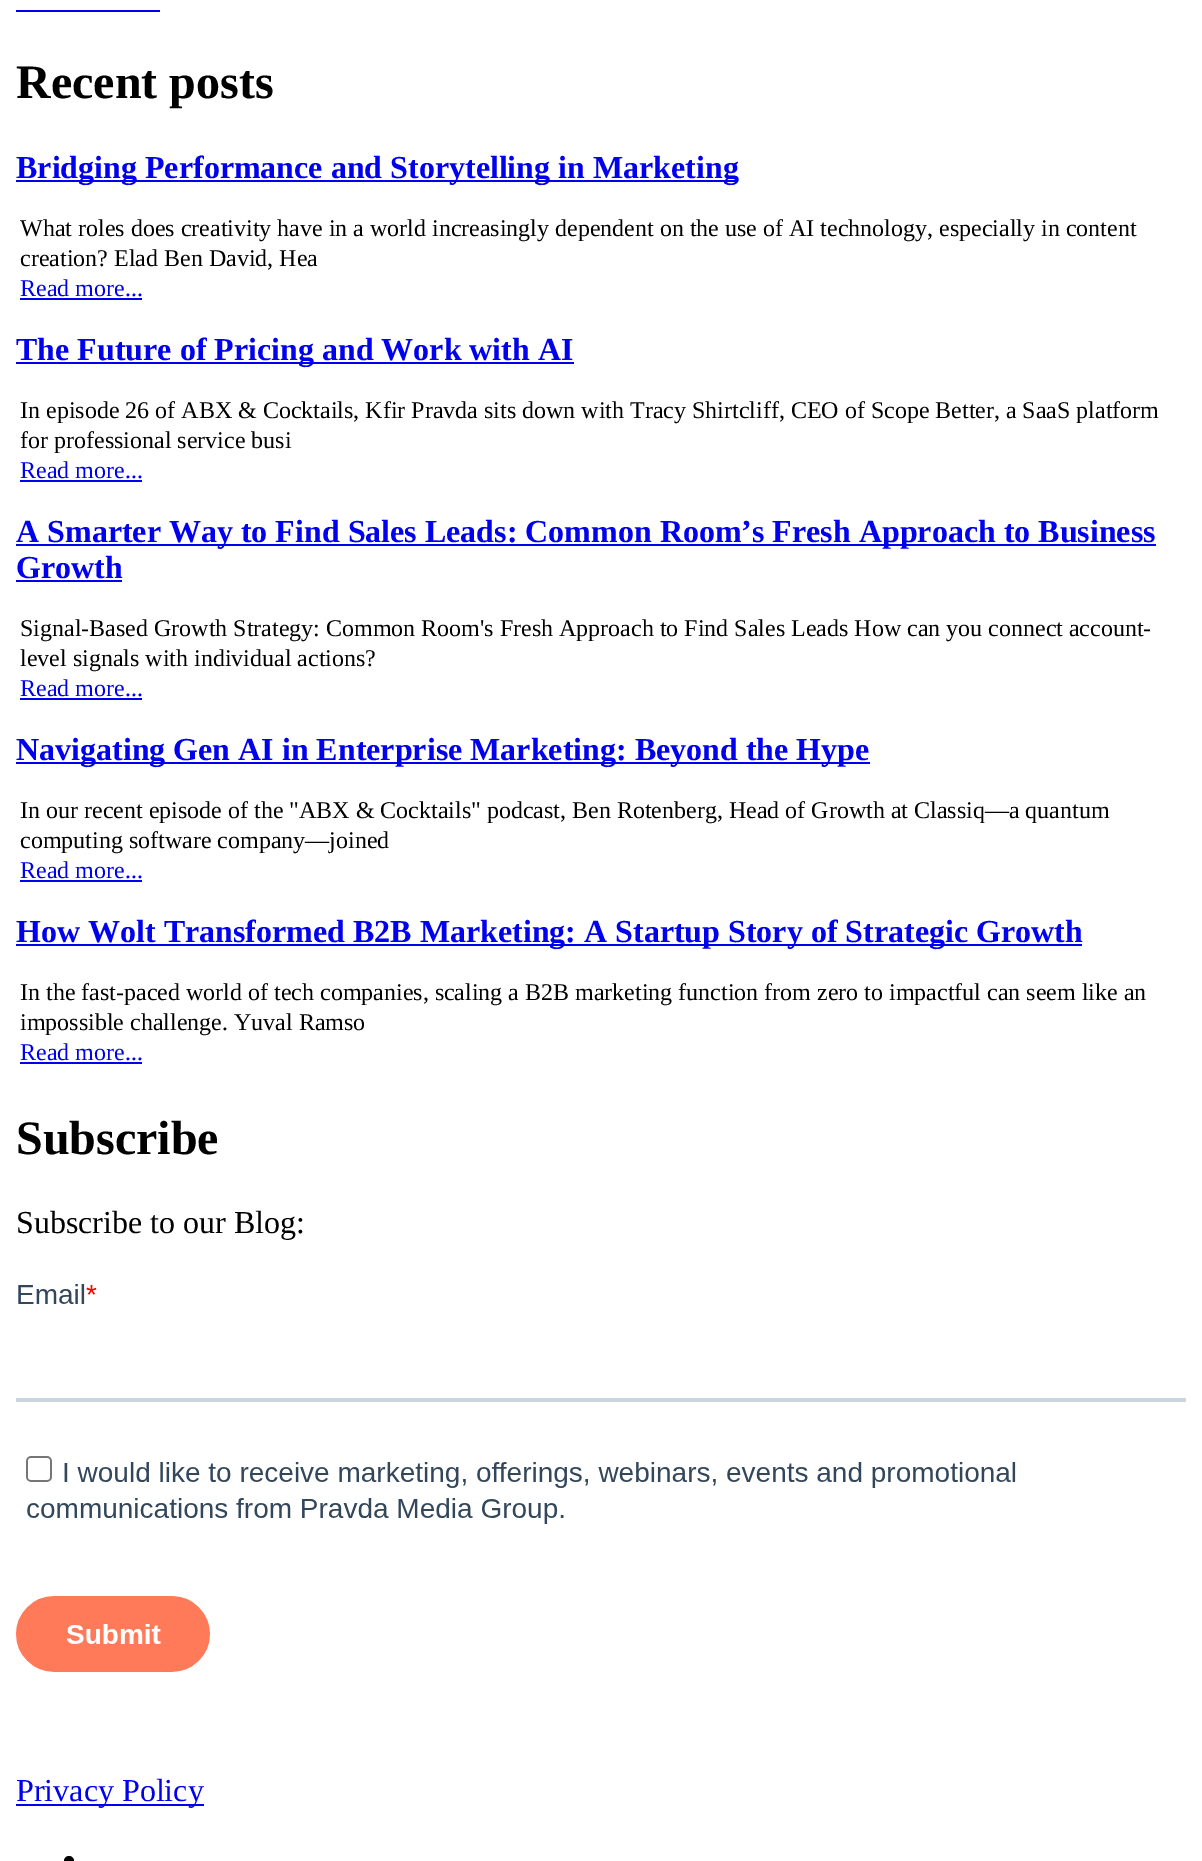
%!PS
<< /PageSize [1202 1861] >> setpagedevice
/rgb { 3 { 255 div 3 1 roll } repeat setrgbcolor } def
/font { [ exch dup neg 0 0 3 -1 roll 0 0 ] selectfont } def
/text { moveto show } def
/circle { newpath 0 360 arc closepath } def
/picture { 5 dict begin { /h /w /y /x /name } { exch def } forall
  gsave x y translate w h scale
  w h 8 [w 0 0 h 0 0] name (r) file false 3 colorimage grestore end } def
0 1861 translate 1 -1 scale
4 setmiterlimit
255 255 255 rgb
0 0 1202 1861 rectfill
0 0 238 rgb
16 10 144 2 rectfill
16 180 722 2 rectfill
20 298 122 2 rectfill
16 362 558 2 rectfill
20 480 122 2 rectfill
16 544 1140 2 rectfill
16 580 106 2 rectfill
20 698 122 2 rectfill
16 762 854 2 rectfill
20 880 122 2 rectfill
16 944 1066 2 rectfill
20 1062 122 2 rectfill
(img_01.rgb) 16 1284 1170 388 picture
16 1804 188 2 rectfill
0 0 0 rgb
69 1861 5 circle fill
/LiberationSerif-Bold 48 font
(Recent posts) 16 98 text
/LiberationSerif-Bold 32 font
0 0 238 rgb
(Bridging Performance and Storytelling in Marketing) 16 178 text
/LiberationSerif-Regular 24 font
0 0 0 rgb
(What roles does creativity have in a world increasingly dependent on the use of AI technology, especially in content) 20 236 text
(creation? Elad Ben David, Hea) 20 266 text
0 0 238 rgb
(Read more...) 20 296 text
/LiberationSerif-Bold 32 font
(The Future of Pricing and Work with AI) 16 360 text
/LiberationSerif-Regular 24 font
0 0 0 rgb
(In episode 26 of ABX & Cocktails, Kfir Pravda sits down with Tracy Shirtcliff, CEO of Scope Better, a SaaS platform) 20 418 text
(for professional service busi) 20 448 text
0 0 238 rgb
(Read more...) 20 478 text
/LiberationSerif-Bold 32 font
(A Smarter Way to Find Sales Leads: Common Room’s Fresh Approach to Business) 16 542 text
(Growth) 16 578 text
/LiberationSerif-Regular 24 font
0 0 0 rgb
(Signal-Based Growth Strategy: Common Room's Fresh Approach to Find Sales Leads How can you connect account-) 20 636 text
(level signals with individual actions?) 20 666 text
0 0 238 rgb
(Read more...) 20 696 text
/LiberationSerif-Bold 32 font
(Navigating Gen AI in Enterprise Marketing: Beyond the Hype) 16 760 text
/LiberationSerif-Regular 24 font
0 0 0 rgb
(In our recent episode of the "ABX & Cocktails" podcast, Ben Rotenberg, Head of Growth at Classiq—a quantum) 20 818 text
(computing software company—joined) 20 848 text
0 0 238 rgb
(Read more...) 20 878 text
/LiberationSerif-Bold 32 font
(How Wolt Transformed B2B Marketing: A Startup Story of Strategic Growth) 16 942 text
/LiberationSerif-Regular 24 font
0 0 0 rgb
(In the fast-paced world of tech companies, scaling a B2B marketing function from zero to impactful can seem like an) 20 1000 text
(impossible challenge. Yuval Ramso) 20 1030 text
0 0 238 rgb
(Read more...) 20 1060 text
/LiberationSerif-Bold 48 font
0 0 0 rgb
(Subscribe) 16 1154 text
/LiberationSerif-Regular 32 font
(Subscribe to our Blog:) 16 1233 text
0 0 238 rgb
(Privacy Policy) 16 1801 text
showpage
